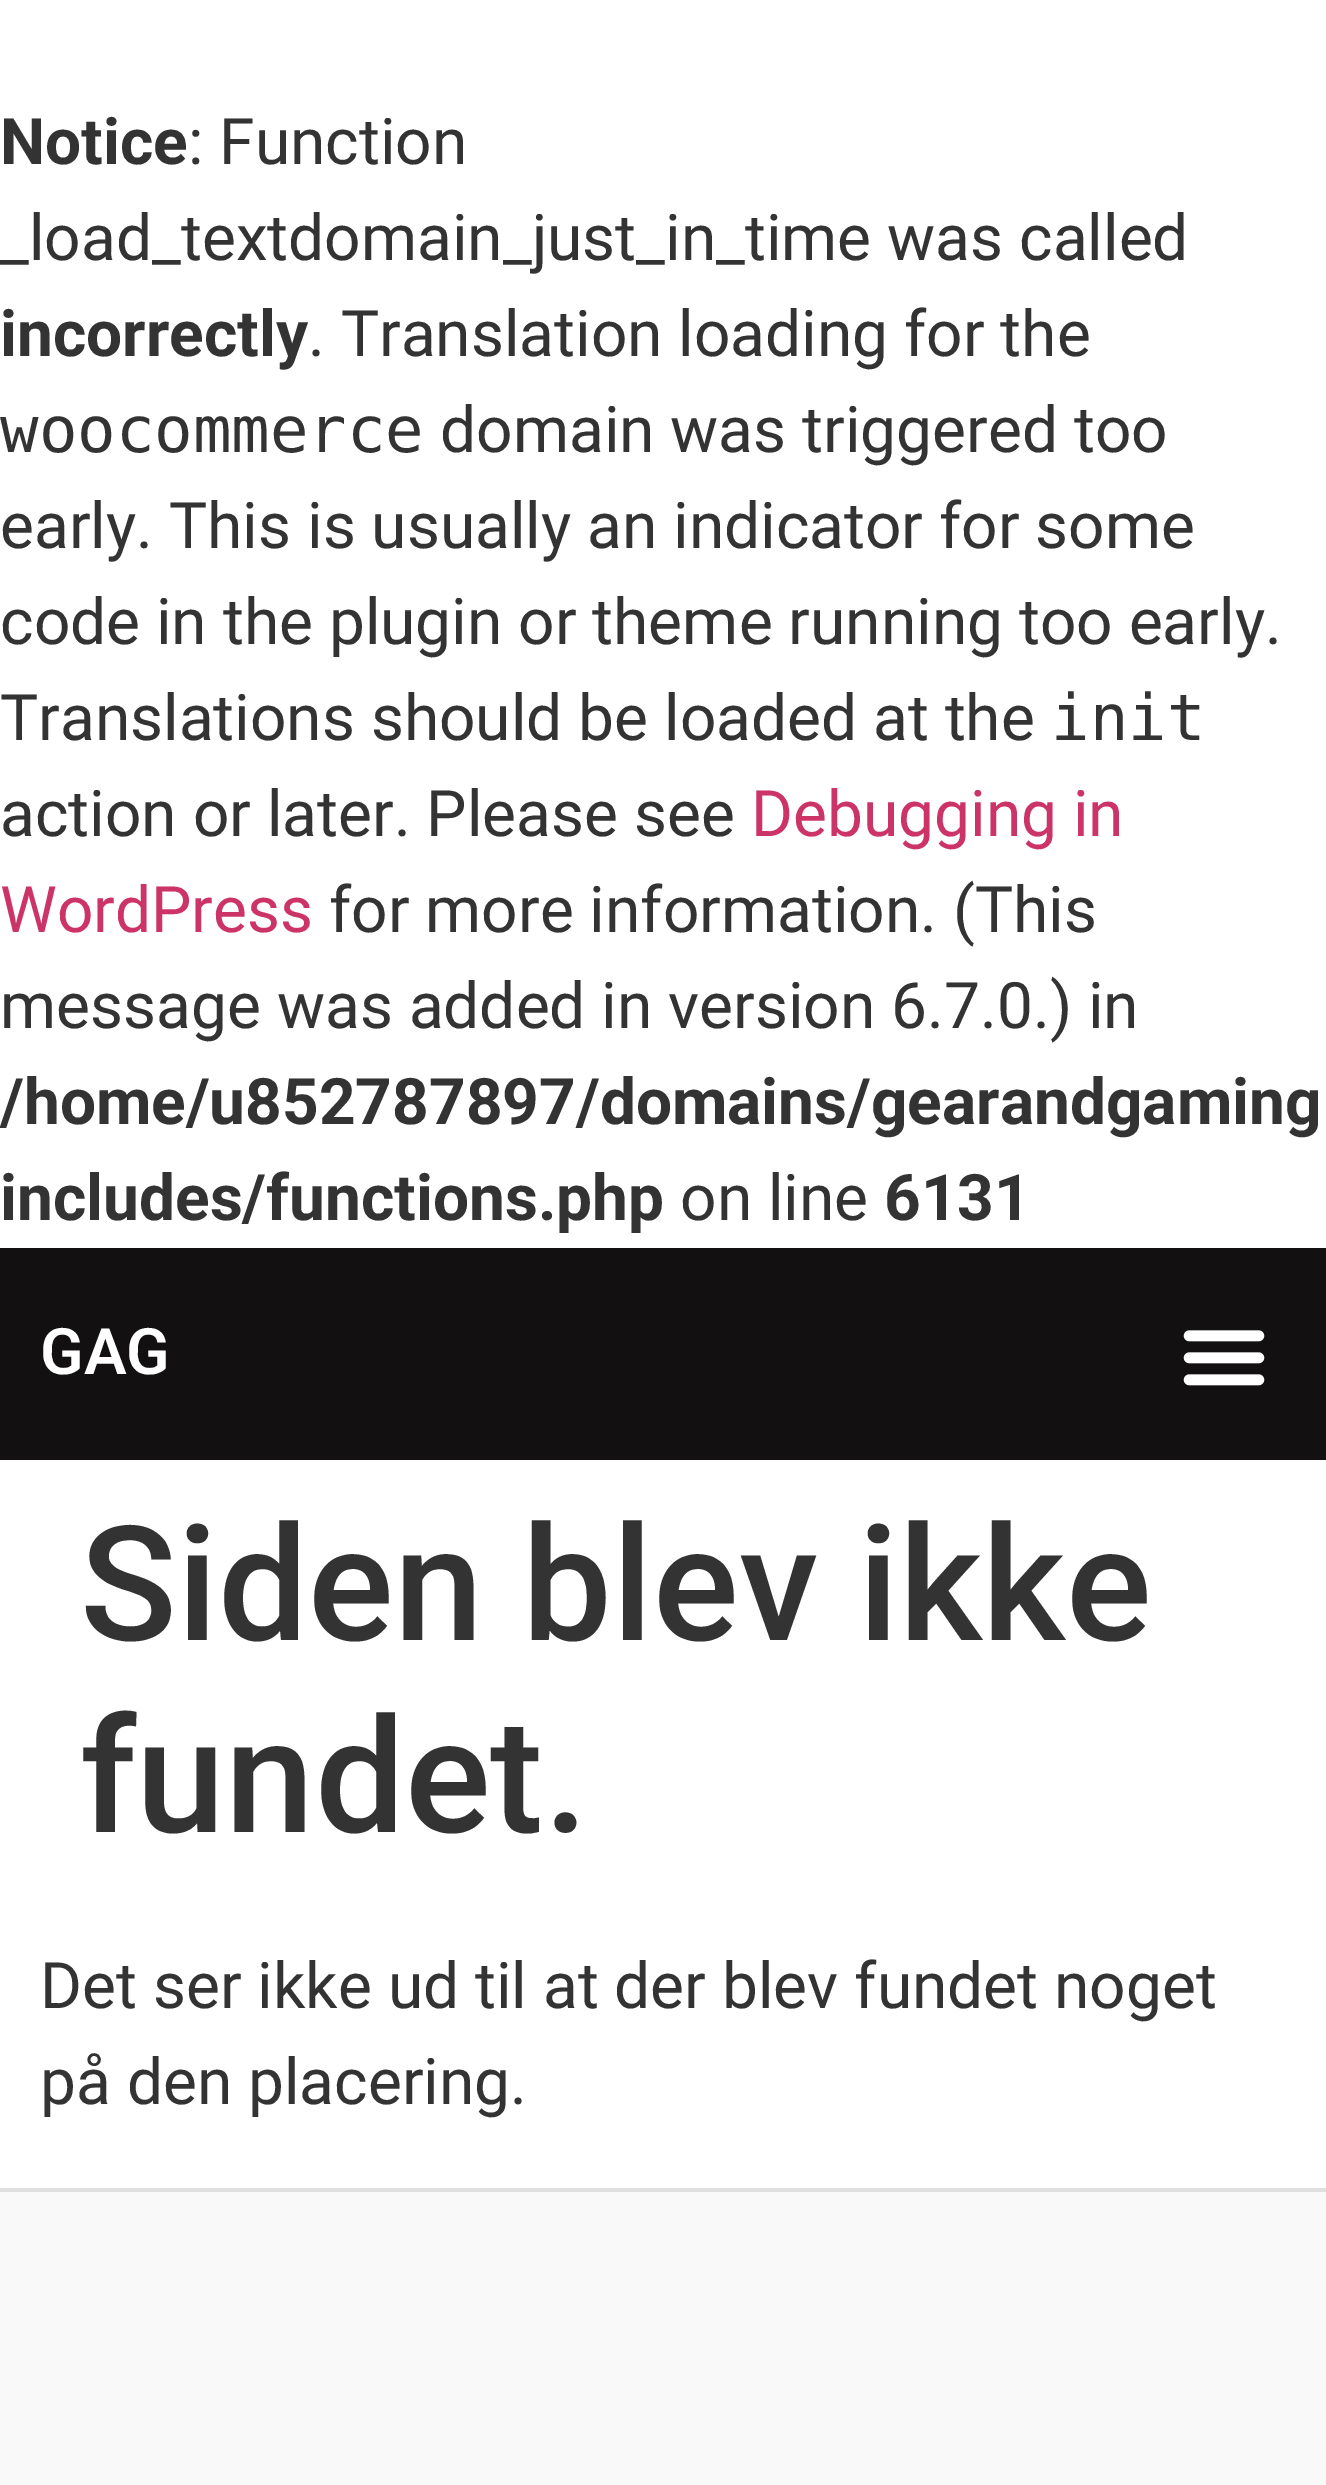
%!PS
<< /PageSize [1326 2485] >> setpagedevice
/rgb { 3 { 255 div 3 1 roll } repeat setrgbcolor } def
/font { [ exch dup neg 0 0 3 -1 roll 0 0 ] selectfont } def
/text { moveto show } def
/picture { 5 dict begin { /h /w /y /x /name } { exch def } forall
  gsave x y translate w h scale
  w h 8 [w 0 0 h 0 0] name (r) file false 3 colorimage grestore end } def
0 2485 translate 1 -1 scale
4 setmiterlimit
255 255 255 rgb
0 0 1326 2485 rectfill
18 16 16 rgb
0 1248 1326 212 rectfill
(img_01.rgb) 1183 1330 82 56 picture
249 249 249 rgb
0 2192 1326 293 rectfill
223 223 223 rgb
0 2188 1326 4 rectfill
/Roboto-Bold 64 font
51 51 51 rgb
(Notice) 0 164 text
/Roboto-Regular 64 font
(: Function) 188 164 text
(_load_textdomain_just_in_time was called) 0 260 text
/Roboto-Bold 64 font
(incorrectly) 0 356 text
/Roboto-Regular 64 font
(. Translation loading for the) 308 356 text
/DejaVuSansMono-Regular 64 font
(woocommerce) 0 452 text
/Roboto-Regular 64 font
(domain was triggered too) 440 452 text
(early. This is usually an indicator for some) 0 548 text
(code in the plugin or theme running too early.) 0 644 text
(Translations should be loaded at the) 0 740 text
/DejaVuSansMono-Regular 64 font
(init) 1051 740 text
/Roboto-Regular 64 font
(action or later. Please see) 0 836 text
204 51 102 rgb
(Debugging in) 751 836 text
(WordPress) 0 932 text
51 51 51 rgb
(for more information. \(This) 329 932 text
(message was added in version 6.7.0.\) in) 0 1028 text
/Roboto-Bold 64 font
(/home/u852787897/domains/gearandgaming) 0 1124 text
(includes/functions.php) 0 1220 text
/Roboto-Regular 64 font
(on line) 680 1220 text
/Roboto-Bold 64 font
(6131) 884 1220 text
/Roboto-SemiBold 64 font
255 255 255 rgb
(GAG) 40 1374 text
/Roboto-Medium 160 font
51 51 51 rgb
(Siden blev ikke) 80 1640 text
(fundet.) 80 1832 text
/Roboto-Regular 64 font
(Det ser ikke ud til at der blev fundet noget) 40 2008 text
(på den placering.) 40 2104 text
showpage
